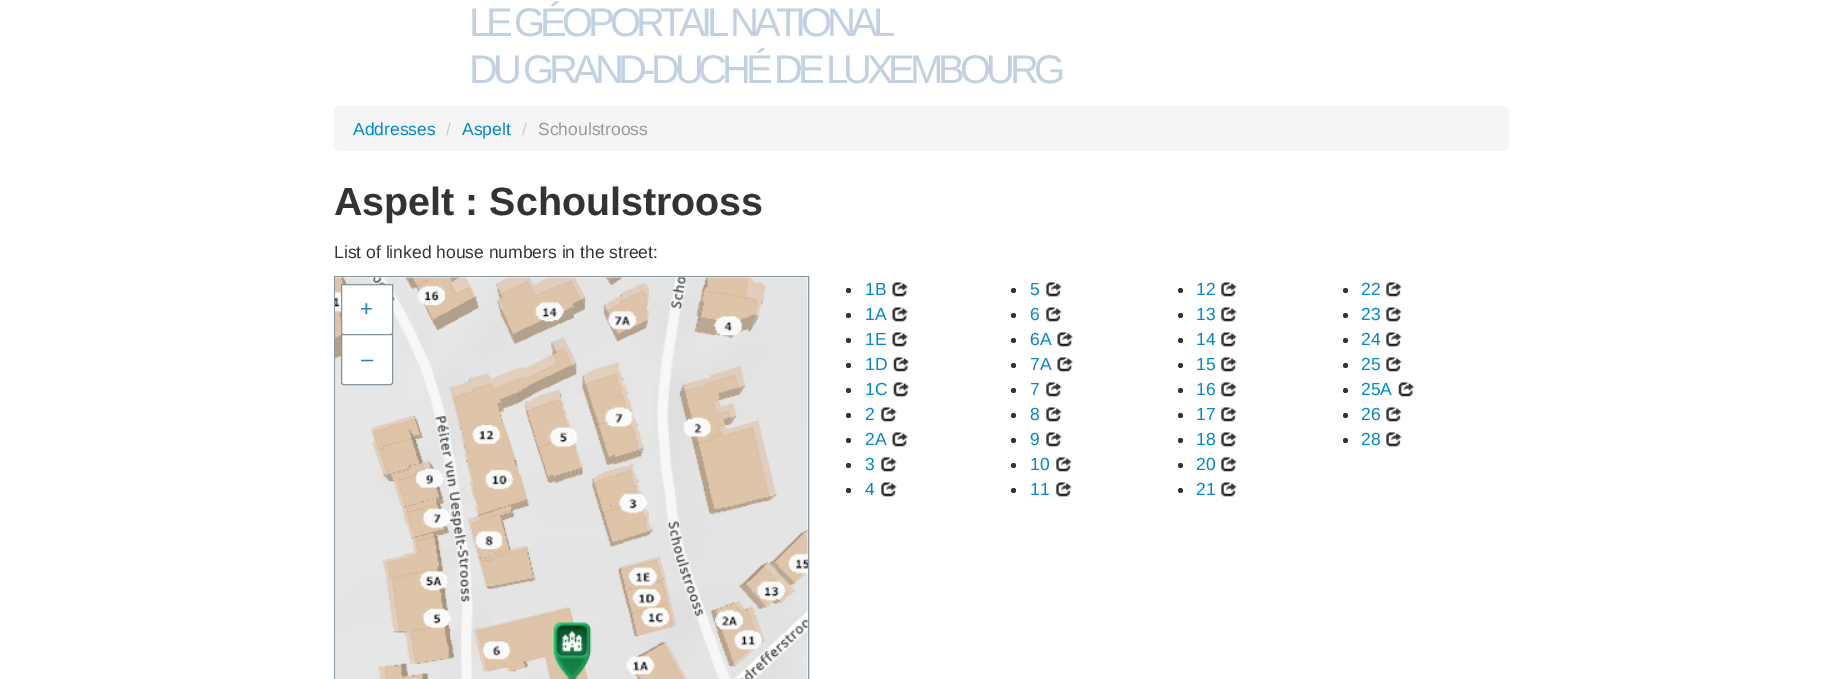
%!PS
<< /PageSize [1842 679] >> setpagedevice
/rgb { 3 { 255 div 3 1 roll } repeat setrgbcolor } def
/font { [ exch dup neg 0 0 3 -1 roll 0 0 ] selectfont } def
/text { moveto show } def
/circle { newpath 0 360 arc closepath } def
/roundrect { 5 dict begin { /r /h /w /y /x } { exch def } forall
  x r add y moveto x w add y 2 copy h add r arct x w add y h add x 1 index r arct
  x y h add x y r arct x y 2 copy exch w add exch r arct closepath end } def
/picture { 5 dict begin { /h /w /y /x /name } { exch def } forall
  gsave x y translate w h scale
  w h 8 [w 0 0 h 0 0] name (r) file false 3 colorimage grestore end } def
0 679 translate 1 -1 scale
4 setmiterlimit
255 255 255 rgb
0 0 1842 679 rectfill
245 245 245 rgb
334 106 1175 45 5 roundrect fill
131 148 160 rgb
334.5 276.5 474 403 rectstroke
(img_01.rgb) 335 277 473 402 picture
(img_02.rgb) 335 286 473 390 picture
255 255 255 rgb
341.5 284.5 moveto 51 0 rlineto 0 48 rlineto 0 1 -1 2 -2 2 rcurveto -47 0 rlineto -1 0 -2 -1 -2 -2 rcurveto closepath gsave fill grestore
131 148 160 rgb
stroke
255 255 255 rgb
341.5 334.5 moveto 51 0 rlineto 0 48 rlineto 0 1 -1 2 -2 2 rcurveto -47 0 rlineto -1 0 -2 -1 -2 -2 rcurveto closepath gsave fill grestore
131 148 160 rgb
stroke
(img_03.rgb) 553 622 39 57 picture
51 51 51 rgb
848.5 290.5 2.5 circle fill
(img_04.rgb) 892 282 16 15 picture
1013.5 290.5 2.5 circle fill
(img_05.rgb) 1046 282 16 15 picture
1180.5 290.5 2.5 circle fill
(img_06.rgb) 1221 282 16 15 picture
1345.5 290.5 2.5 circle fill
(img_06.rgb) 1386 282 16 15 picture
848.5 315.5 2.5 circle fill
(img_04.rgb) 892 307 16 15 picture
1013.5 315.5 2.5 circle fill
(img_05.rgb) 1046 307 16 15 picture
1180.5 315.5 2.5 circle fill
(img_06.rgb) 1221 307 16 15 picture
1345.5 315.5 2.5 circle fill
(img_06.rgb) 1386 307 16 15 picture
848.5 340.5 2.5 circle fill
(img_04.rgb) 892 332 16 15 picture
1013.5 340.5 2.5 circle fill
(img_04.rgb) 1057 332 16 15 picture
1180.5 340.5 2.5 circle fill
(img_06.rgb) 1221 332 16 15 picture
1345.5 340.5 2.5 circle fill
(img_06.rgb) 1386 332 16 15 picture
848.5 365.5 2.5 circle fill
(img_07.rgb) 893 357 16 15 picture
1013.5 365.5 2.5 circle fill
(img_04.rgb) 1057 357 16 15 picture
1180.5 365.5 2.5 circle fill
(img_06.rgb) 1221 357 16 15 picture
1345.5 365.5 2.5 circle fill
(img_06.rgb) 1386 357 16 15 picture
848.5 390.5 2.5 circle fill
(img_07.rgb) 893 382 16 15 picture
1013.5 390.5 2.5 circle fill
(img_05.rgb) 1046 382 16 15 picture
1180.5 390.5 2.5 circle fill
(img_06.rgb) 1221 382 16 15 picture
1345.5 390.5 2.5 circle fill
(img_07.rgb) 1398 382 16 15 picture
848.5 415.5 2.5 circle fill
(img_06.rgb) 881 407 16 15 picture
1013.5 415.5 2.5 circle fill
(img_05.rgb) 1046 407 16 15 picture
1180.5 415.5 2.5 circle fill
(img_06.rgb) 1221 407 16 15 picture
1345.5 415.5 2.5 circle fill
(img_06.rgb) 1386 407 16 15 picture
848.5 440.5 2.5 circle fill
(img_04.rgb) 892 432 16 15 picture
1013.5 440.5 2.5 circle fill
(img_05.rgb) 1046 432 16 15 picture
1180.5 440.5 2.5 circle fill
(img_06.rgb) 1221 432 16 15 picture
1345.5 440.5 2.5 circle fill
(img_06.rgb) 1386 432 16 15 picture
848.5 465.5 2.5 circle fill
(img_06.rgb) 881 457 16 15 picture
1013.5 465.5 2.5 circle fill
(img_05.rgb) 1056 457 16 15 picture
1180.5 465.5 2.5 circle fill
(img_06.rgb) 1221 457 16 15 picture
848.5 490.5 2.5 circle fill
(img_06.rgb) 881 482 16 15 picture
1013.5 490.5 2.5 circle fill
(img_05.rgb) 1056 482 16 15 picture
1180.5 490.5 2.5 circle fill
(img_06.rgb) 1221 482 16 15 picture
/LiberationSans-Regular 40 font
194 209 225 rgb
469 36 moveto -5 0 (LE GÉOPORTAIL NATIONAL) ashow
469 83 moveto -5 0 (DU GRAND-DUCHÉ DE LUXEMBOURG) ashow
/LiberationSans-Regular 17.5 font
0 136 204 rgb
(Addresses) 353 135 text
204 204 204 rgb
(/) 446 135 text
0 136 204 rgb
(Aspelt) 462 135 text
204 204 204 rgb
(/) 522 135 text
153 153 153 rgb
(Schoulstrooss) 538 135 text
/LiberationSans-Bold 39.4 font
51 51 51 rgb
(Aspelt : Schoulstrooss) 334 215 text
/LiberationSans-Regular 17.5 font
(List of linked house numbers in the street:) 334 258 text
/LiberationSans-Regular 22 font
41 128 185 rgb
(+) 360 316 text
(–) 361 366 text
/LiberationSans-Regular 17.5 font
0 136 204 rgb
(1B) 865 295 text
(5) 1030 295 text
(12) 1196 295 text
(22) 1361 295 text
(1A) 865 320 text
(6) 1030 320 text
(13) 1196 320 text
(23) 1361 320 text
(1E) 865 345 text
(6A) 1030 345 text
(14) 1196 345 text
(24) 1361 345 text
(1D) 865 370 text
(7A) 1030 370 text
(15) 1196 370 text
(25) 1361 370 text
(1C) 865 395 text
(7) 1030 395 text
(16) 1196 395 text
(25A) 1361 395 text
(2) 865 420 text
(8) 1030 420 text
(17) 1196 420 text
(26) 1361 420 text
(2A) 865 445 text
(9) 1030 445 text
(18) 1196 445 text
(28) 1361 445 text
(3) 865 470 text
(10) 1030 470 text
(20) 1196 470 text
(4) 865 495 text
(11) 1030 495 text
(21) 1196 495 text
showpage
